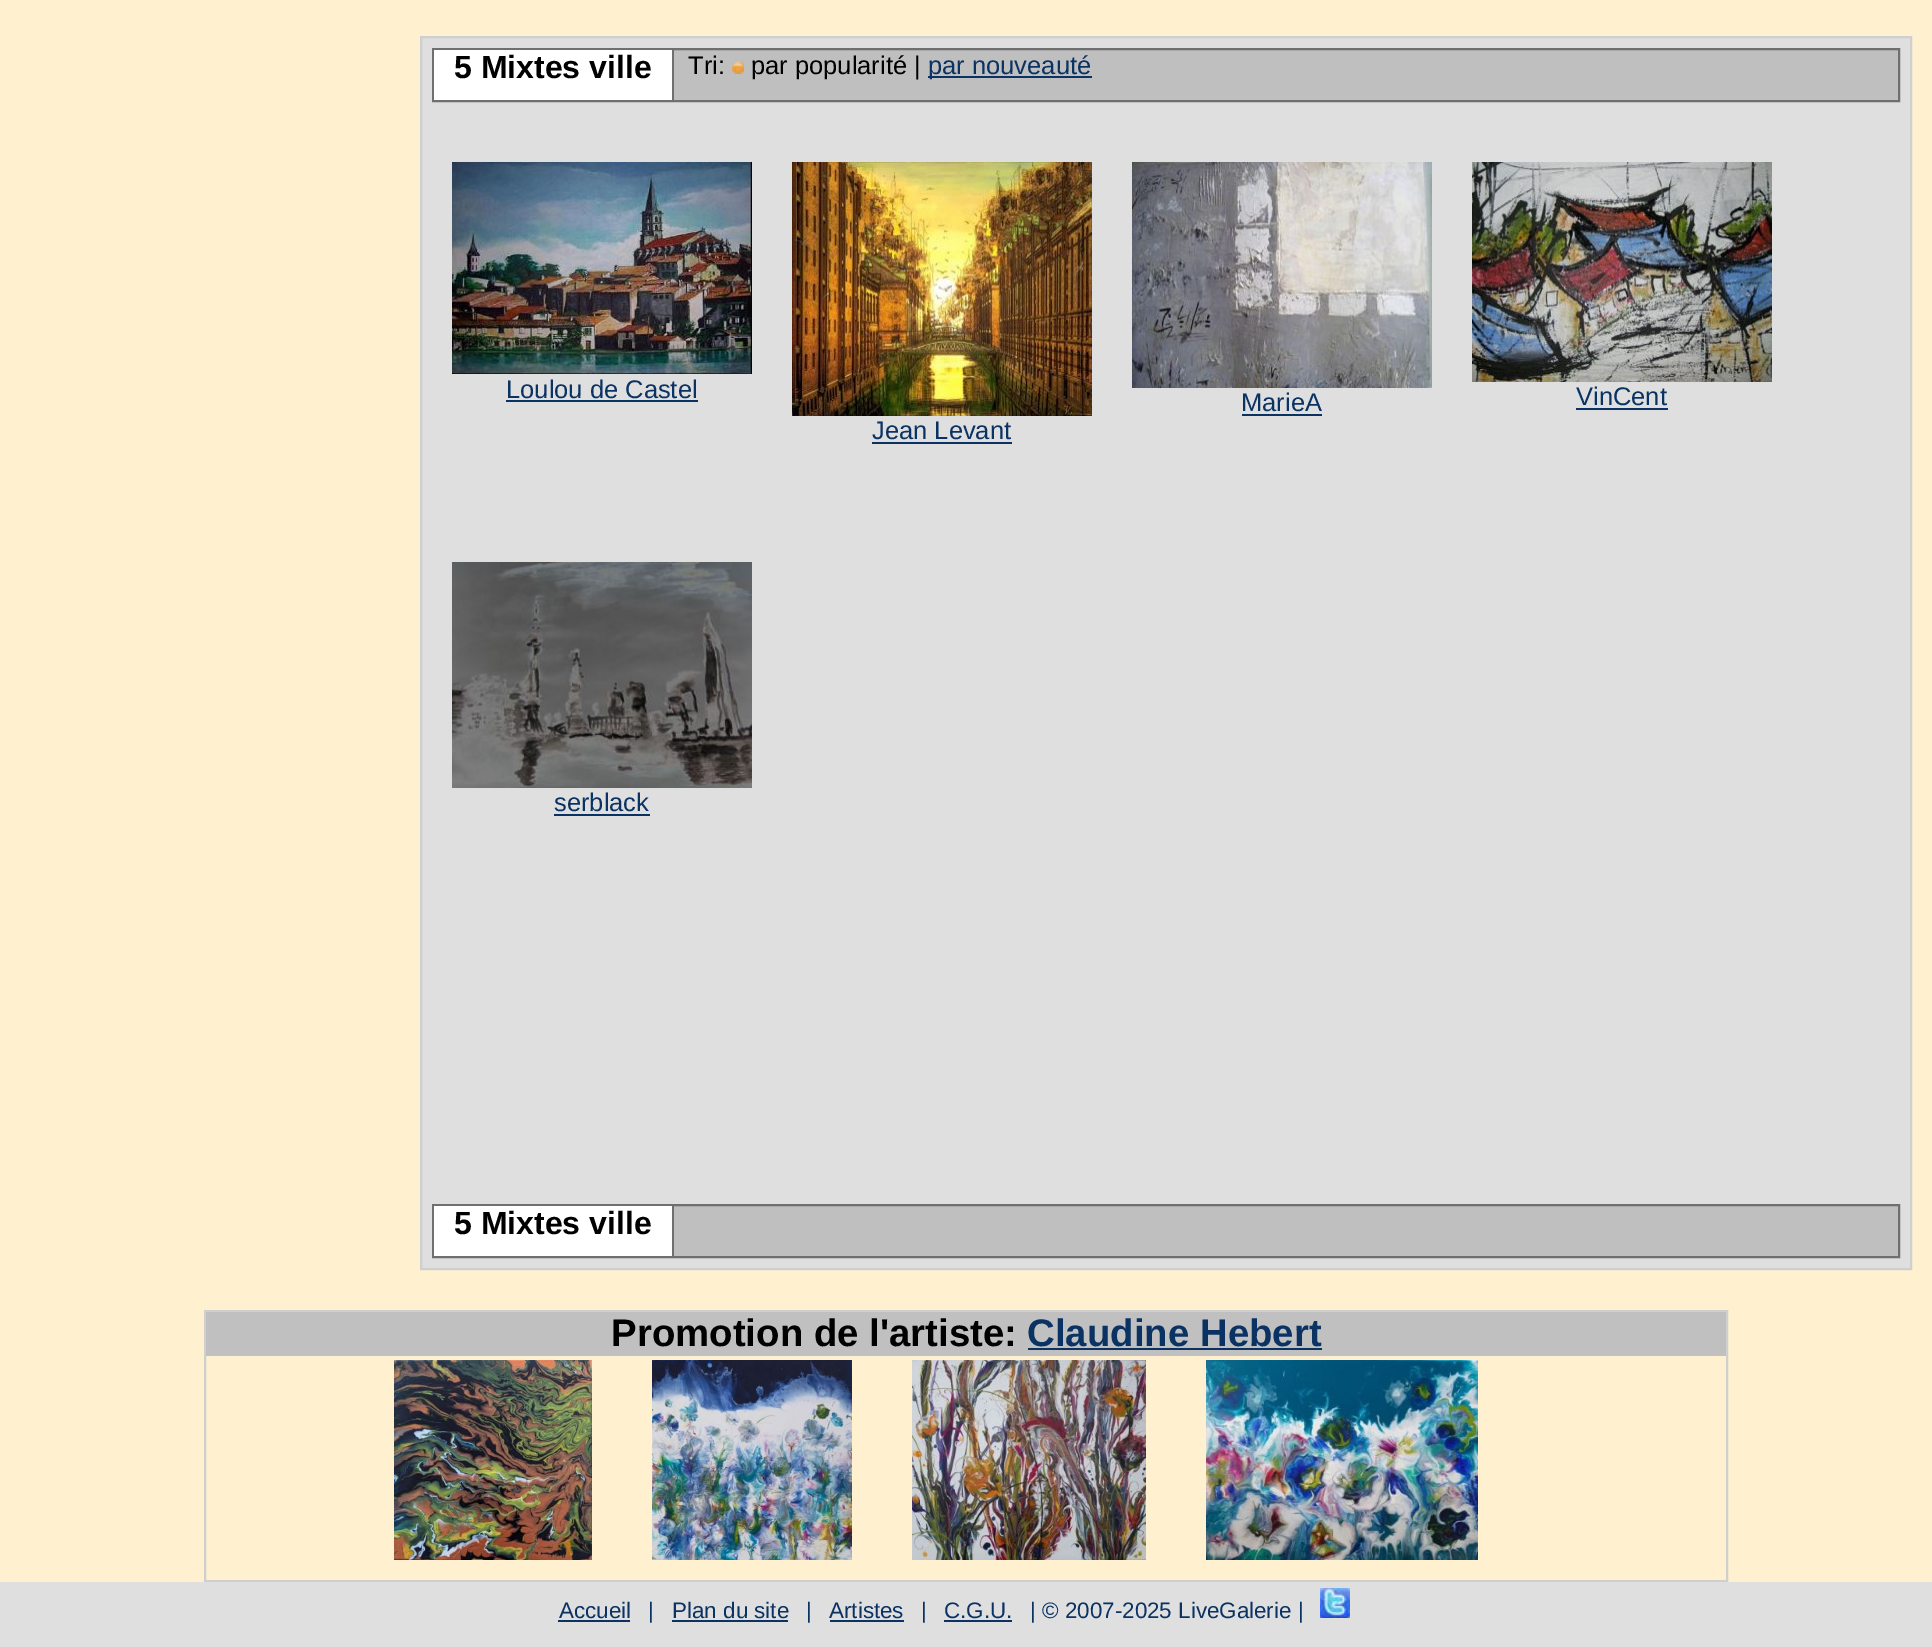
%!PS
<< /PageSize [1932 1647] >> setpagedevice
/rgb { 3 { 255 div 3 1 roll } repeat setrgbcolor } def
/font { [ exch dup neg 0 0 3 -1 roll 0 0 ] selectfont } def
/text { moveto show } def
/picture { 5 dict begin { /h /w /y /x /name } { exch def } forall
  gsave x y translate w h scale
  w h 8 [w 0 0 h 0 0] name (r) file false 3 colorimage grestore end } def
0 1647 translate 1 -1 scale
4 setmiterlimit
255 240 207 rgb
0 0 1932 1647 rectfill
223 223 223 rgb
421 37 moveto 1490 0 rlineto 0 1232 rlineto -1490 0 rlineto closepath gsave fill grestore
207 207 207 rgb
2 setlinewidth
stroke
191 191 191 rgb
674 50 1224 50 rectfill
111 111 111 rgb
433 49 1466 52 rectstroke
255 255 255 rgb
434 50 238 50 rectfill
111 111 111 rgb
672 50 2 50 rectfill
(img_01.rgb) 732 62 12 12 picture
10 50 99 rgb
928 76 164 2 rectfill
(img_02.rgb) 452 162 300 212 picture
506 400 192 2 rectfill
(img_03.rgb) 1132 162 300 226 picture
1242 414 80 2 rectfill
(img_04.rgb) 1472 162 300 220 picture
1576 408 92 2 rectfill
(img_05.rgb) 792 162 300 254 picture
872 442 140 2 rectfill
(img_06.rgb) 452 562 300 226 picture
554 814 96 2 rectfill
191 191 191 rgb
674 1206 1224 50 rectfill
111 111 111 rgb
433 1205 1466 52 rectstroke
255 255 255 rgb
434 1206 238 50 rectfill
111 111 111 rgb
672 1206 2 50 rectfill
207 207 207 rgb
205 1311 1522 270 rectstroke
192 192 192 rgb
206 1312 1520 44 rectfill
10 50 99 rgb
1028 1348 294 2 rectfill
(img_07.rgb) 394 1360 198 200 picture
(img_08.rgb) 652 1360 200 200 picture
(img_09.rgb) 912 1360 234 200 picture
(img_10.rgb) 1206 1360 272 200 picture
223 223 223 rgb
0 1582 1932 65 rectfill
10 50 99 rgb
558 1620 72 2 rectfill
672 1620 116 2 rectfill
830 1620 74 2 rectfill
944 1620 68 2 rectfill
(img_11.rgb) 1320 1588 30 30 picture
/LiberationSans-Bold 32 font
0 0 0 rgb
(5 Mixtes ville) 454 78 text
/LiberationSans-Regular 25.5 font
(Tri:) 688 74 text
(par popularité |) 751 74 text
10 50 99 rgb
(par nouveauté) 928 74 text
(Loulou de Castel) 506 398 text
(MarieA) 1241 411 text
(VinCent) 1576 405 text
(Jean Levant) 872 439 text
(serblack) 554 811 text
/LiberationSans-Bold 32 font
0 0 0 rgb
(5 Mixtes ville) 454 1234 text
/LiberationSans-Bold 38.4 font
(Promotion de l'artiste:) 611 1346 text
10 50 99 rgb
(Claudine Hebert) 1027 1346 text
/LiberationSans-Regular 22.4 font
(Accueil) 559 1618 text
(|) 648 1618 text
(Plan du site) 672 1618 text
(|) 806 1618 text
(Artistes) 829 1618 text
(|) 921 1618 text
(C.G.U.) 944 1618 text
(| © 2007-2025 LiveGalerie |) 1030 1618 text
showpage
